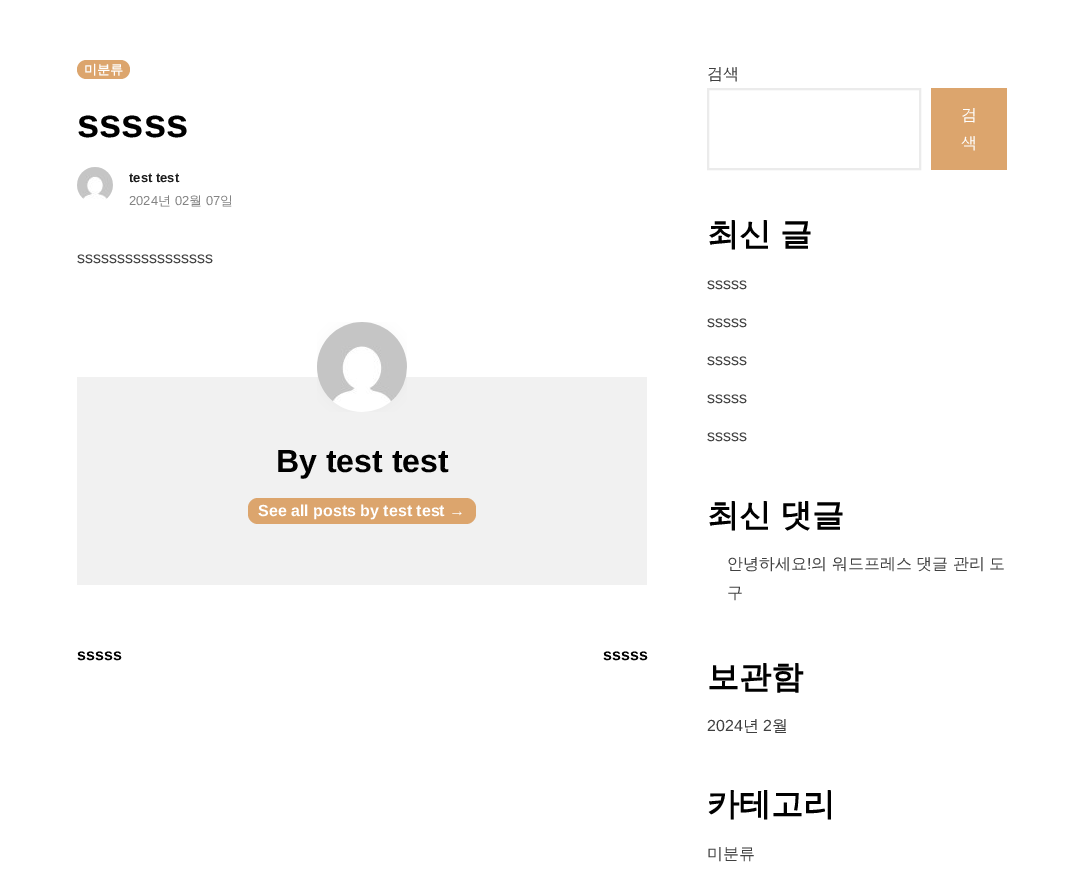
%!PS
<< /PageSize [1084 882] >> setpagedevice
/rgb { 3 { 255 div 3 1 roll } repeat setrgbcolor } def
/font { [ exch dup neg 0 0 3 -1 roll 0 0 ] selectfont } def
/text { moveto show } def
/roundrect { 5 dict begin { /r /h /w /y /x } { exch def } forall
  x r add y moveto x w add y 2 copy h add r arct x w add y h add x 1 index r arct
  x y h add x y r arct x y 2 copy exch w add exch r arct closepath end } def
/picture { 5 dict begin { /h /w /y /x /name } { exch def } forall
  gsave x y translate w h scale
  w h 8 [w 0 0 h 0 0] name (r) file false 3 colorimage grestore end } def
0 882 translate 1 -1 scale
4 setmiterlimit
255 255 255 rgb
0 0 1084 882 rectfill
220 165 109 rgb
77 60 53 19 9.5 roundrect fill
(img_01.rgb) 77 167 36 33 picture
241 241 241 rgb
77 377 570 208 rectfill
(img_02.rgb) 317 322 90 90 picture
220 165 109 rgb
248 498 228 26 10 roundrect fill
235 235 235 rgb
2 setlinewidth
708 89 212 80 rectstroke
220 165 109 rgb
931 88 76 82 rectfill
/WenQuanYiZenHei-Bold 13 font
255 255 255 rgb
(미분류) 84 74 text
/LiberationSans-Bold 40 font
0 0 0 rgb
(sssss) 77 137 text
/LiberationSans-Bold 13 font
28 28 28 rgb
(test test) 129 182 text
/LiberationSans-Regular 13 font
131 131 131 rgb
(2024) 129 205 text
/WenQuanYiZenHei-Medium 13 font
(년) 158 205 text
/LiberationSans-Regular 13 font
(02) 175 205 text
/WenQuanYiZenHei-Medium 13 font
(월) 189 205 text
/LiberationSans-Regular 13 font
(07) 206 205 text
/WenQuanYiZenHei-Medium 13 font
(일) 220 205 text
/LiberationSans-Regular 16 font
64 64 64 rgb
(sssssssssssssssss) 77 263 text
/LiberationSans-Bold 32 font
0 0 0 rgb
(By test test) 276 472 text
/LiberationSans-Bold 16 font
255 255 255 rgb
(See all posts by test test →) 258 516 text
0 0 0 rgb
(sssss) 77 660 text
(sssss) 603 660 text
/WenQuanYiZenHei-Medium 16 font
64 64 64 rgb
(검색) 707 79 text
255 255 255 rgb
(검) 961 120 text
(색) 961 148 text
/WenQuanYiZenHei-Bold 32 font
0 0 0 rgb
707 245 moveto -1 0 32 (최신 글) widthshow
/LiberationSans-Regular 16 font
64 64 64 rgb
(sssss) 707 289 text
(sssss) 707 327 text
(sssss) 707 365 text
(sssss) 707 403 text
(sssss) 707 441 text
/WenQuanYiZenHei-Bold 32 font
0 0 0 rgb
707 526 moveto -1 0 32 (최신 댓글) widthshow
/WenQuanYiZenHei-Medium 16 font
64 64 64 rgb
(안녕하세요) 727 569 text
/LiberationSans-Regular 16 font
(!) 807 569 text
/WenQuanYiZenHei-Medium 16 font
(의) 811 569 text
832 569 moveto -0.5 0 32 (워드프레스 댓글 관리 도) widthshow
(구) 727 598 text
/WenQuanYiZenHei-Bold 32 font
0 0 0 rgb
(보관함) 707 688 text
/LiberationSans-Regular 16 font
64 64 64 rgb
(2024) 707 731 text
/WenQuanYiZenHei-Medium 16 font
(년) 743 731 text
/LiberationSans-Regular 16 font
(2) 763 731 text
/WenQuanYiZenHei-Medium 16 font
(월) 772 731 text
/WenQuanYiZenHei-Bold 32 font
0 0 0 rgb
(카테고리) 707 815 text
/WenQuanYiZenHei-Medium 16 font
64 64 64 rgb
(미분류) 707 859 text
showpage
